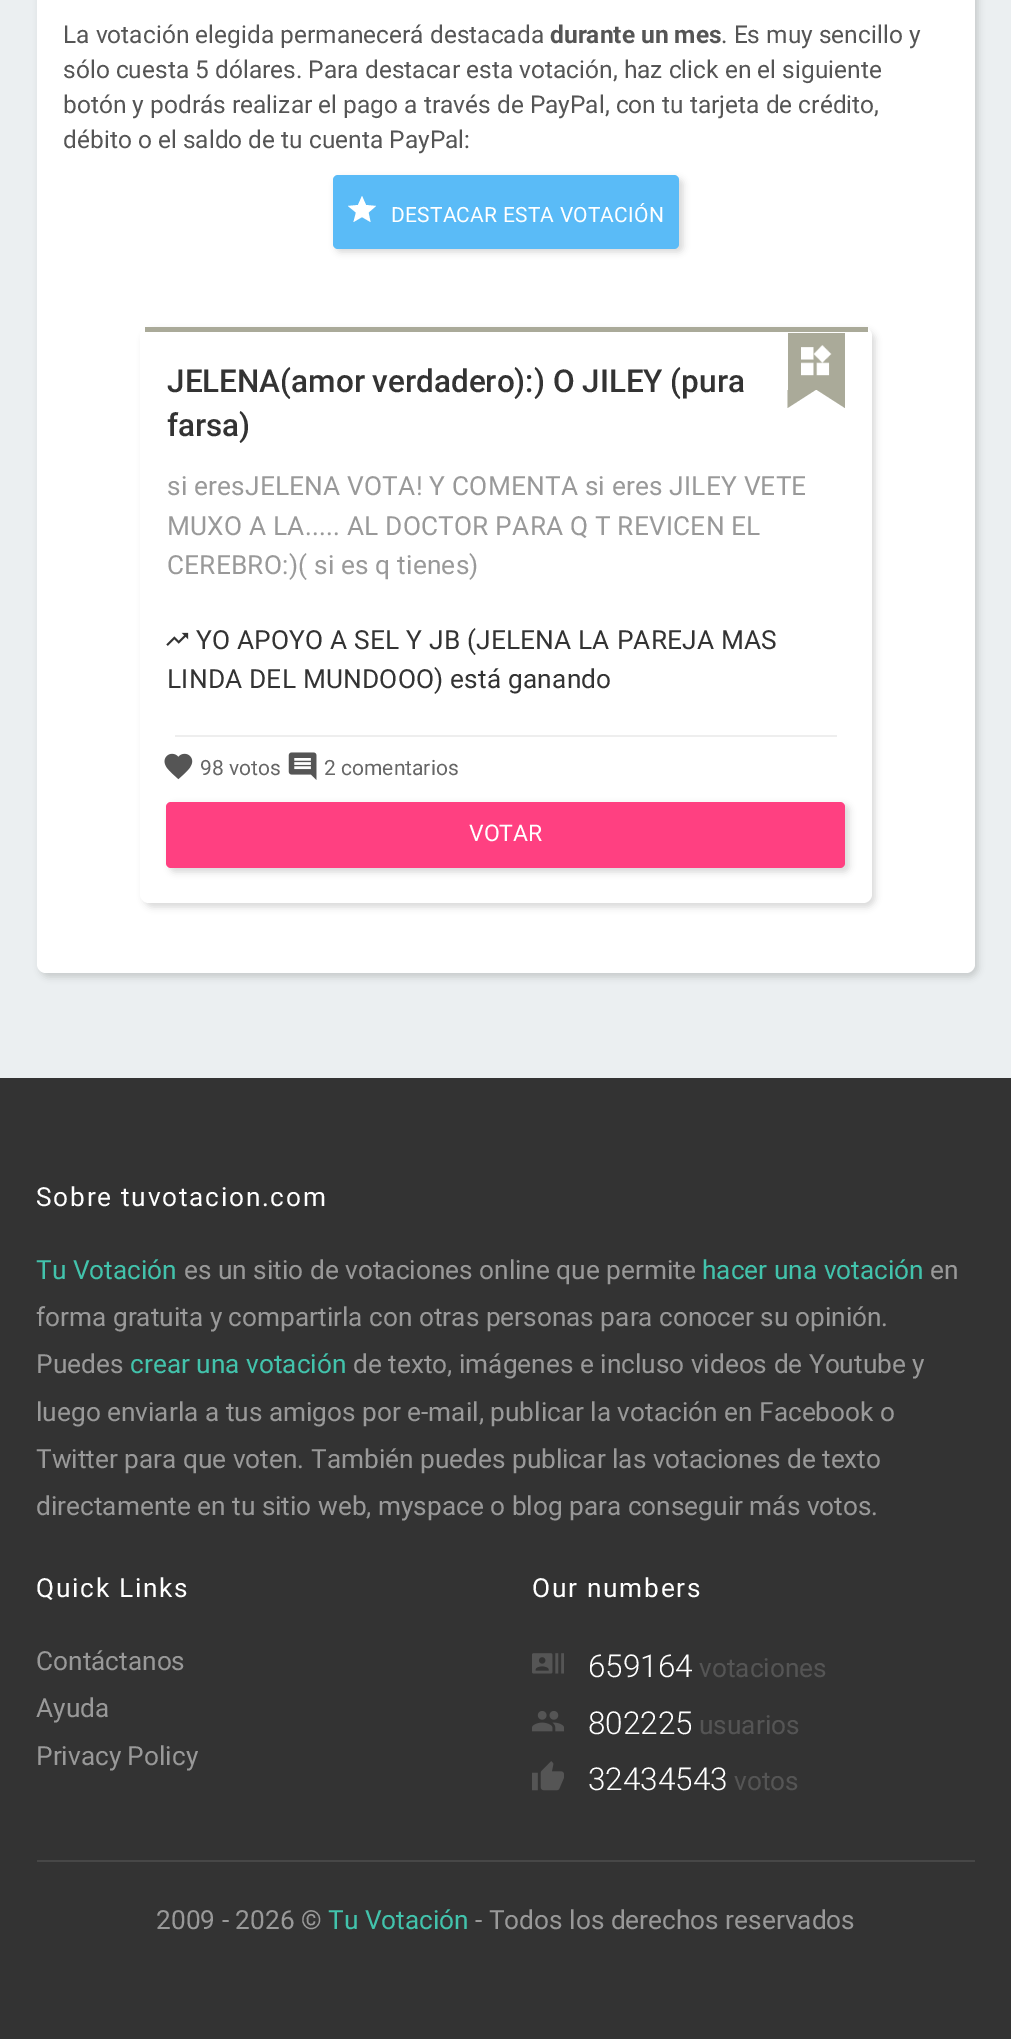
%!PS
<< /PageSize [1011 2039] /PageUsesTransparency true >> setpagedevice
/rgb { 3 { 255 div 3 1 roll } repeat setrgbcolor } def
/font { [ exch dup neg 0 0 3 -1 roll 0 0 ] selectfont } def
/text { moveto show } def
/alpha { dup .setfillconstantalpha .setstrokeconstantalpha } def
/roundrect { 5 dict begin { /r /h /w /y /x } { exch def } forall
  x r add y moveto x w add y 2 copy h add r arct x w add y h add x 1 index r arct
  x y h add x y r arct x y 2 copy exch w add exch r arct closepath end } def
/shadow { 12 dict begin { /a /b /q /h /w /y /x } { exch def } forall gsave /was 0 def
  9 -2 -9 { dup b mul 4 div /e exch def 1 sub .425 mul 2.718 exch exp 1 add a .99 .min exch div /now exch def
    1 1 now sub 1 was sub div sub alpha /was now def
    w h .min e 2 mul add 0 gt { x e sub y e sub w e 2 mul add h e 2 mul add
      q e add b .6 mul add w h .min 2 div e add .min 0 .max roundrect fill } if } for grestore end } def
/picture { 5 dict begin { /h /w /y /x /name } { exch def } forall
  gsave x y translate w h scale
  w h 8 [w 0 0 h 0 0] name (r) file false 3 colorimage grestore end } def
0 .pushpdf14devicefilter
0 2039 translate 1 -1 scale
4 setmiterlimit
235 239 241 rgb
0 0 1011 2039 rectfill
0 0 0 rgb
40 -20 938 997 9 3.5 0.15 shadow
255 255 255 rgb
37 -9 938 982 9 roundrect fill
0 0 0 rgb
336 179 347 73 5 3.5 0.15 shadow
90 187 247 rgb
333 175 346 74 5 roundrect fill
255 255 255 rgb
362 217 moveto -8.5 5 rlineto 2.5 -9.5 rlineto -8 -6.5 rlineto 10 -1 rlineto 4 -9 rlineto 4 9 rlineto 10 1 rlineto -7.5 6.5 rlineto 2 9.5 rlineto closepath fill
0 0 0 rgb
144 331 731 576 9 3.5 0.15 shadow
255 255 255 rgb
140 327 732 576 9 roundrect fill
170 170 153 rgb
145 327 723 5 rectfill
788 333 57 57 rectfill
(img_01.rgb) 801 345 31 31 picture
787.5 390 moveto 28 0 rlineto -28 18 rlineto closepath 817 390 moveto 28 0 rlineto 0 18 rlineto closepath fill
(img_02.rgb) 166 632 23 14 picture
238 238 238 rgb
175 735 662 2 rectfill
(img_03.rgb) 164 753 29 27 picture
(img_04.rgb) 288 752 29 28 picture
0 0 0 rgb
170 805 679 67 5 3.5 0.15 shadow
255 64 129 rgb
166 802 679 66 5 roundrect fill
51 51 51 rgb
0 1078 1011 961 rectfill
(img_05.rgb) 532 1653 32 21 picture
(img_06.rgb) 532 1711 32 21 picture
(img_07.rgb) 532 1761 32 30 picture
71 71 71 rgb
37 1860 938 2 rectfill
/Roboto-Regular 24.5 font
85 85 85 rgb
(La votación elegida permanecerá destacada) 63 43 text
/Roboto-Bold 24.5 font
(durante un mes) 550 43 text
/Roboto-Regular 24.5 font
(. Es muy sencillo y) 721 43 text
(sólo cuesta 5 dólares. Para destacar esta votación, haz click en el siguiente) 63 78 text
(botón y podrás realizar el pago a través de PayPal, con tu tarjeta de crédito,) 63 113 text
(débito o el saldo de tu cuenta PayPal:) 63 148 text
/Roboto-Regular 21 font
255 255 255 rgb
391 222 moveto 0.2 0 (DESTACAR ESTA VOTACIÓN) ashow
/Roboto-Medium 31.5 font
51 51 51 rgb
(JELENA\(amor verdadero\):\) O JILEY \(pura) 167 392 text
(farsa\)) 167 436 text
/Roboto-Regular 26.25 font
153 153 153 rgb
167 495 moveto 0.2 0 (si eresJELENA VOTA! Y COMENTA si eres JILEY VETE) ashow
167 535 moveto 0.2 0 (MUXO A LA..... AL DOCTOR PARA Q T REVICEN EL) ashow
167 574 moveto 0.2 0 (CEREBRO:\)\( si es q tienes\)) ashow
51 51 51 rgb
196 649 moveto 0.2 0 (YO APOYO A SEL Y JB \(JELENA LA PAREJA MAS) ashow
167 688 moveto 0.2 0 (LINDA DEL MUNDOOO\) está ganando) ashow
/Roboto-Regular 21 font
102 102 102 rgb
(98 votos) 200 775 text
(2 comentarios) 324 775 text
/Roboto-Regular 23 font
255 255 255 rgb
(VOTAR) 469 841 text
/Roboto-Regular 26.25 font
36 1206 moveto 1.75 0 (Sobre tuvotacion.com) ashow
66 195 172 rgb
(Tu Votación) 36 1279 text
153 153 153 rgb
(es un sitio de votaciones online que permite) 184 1279 text
66 195 172 rgb
(hacer una votación) 702 1279 text
153 153 153 rgb
(en) 930 1279 text
(forma gratuita y compartirla con otras personas para conocer su opinión.) 36 1326 text
(Puedes) 36 1373 text
66 195 172 rgb
(crear una votación) 130 1373 text
153 153 153 rgb
(de texto, imágenes e incluso videos de Youtube y) 353 1373 text
(luego enviarla a tus amigos por e-mail, publicar la votación en Facebook o) 36 1421 text
(Twitter para que voten. También puedes publicar las votaciones de texto) 36 1468 text
(directamente en tu sitio web, myspace o blog para conseguir más votos.) 36 1515 text
255 255 255 rgb
36 1597 moveto 1.75 0 (Quick Links) ashow
153 153 153 rgb
(Contáctanos) 36 1670 text
(Ayuda) 36 1717 text
(Privacy Policy) 36 1765 text
255 255 255 rgb
532 1597 moveto 1.75 0 (Our numbers) ashow
/Roboto-Light 31.5 font
(659164) 588 1677 text
/Roboto-Regular 26.25 font
85 85 85 rgb
(votaciones) 699 1677 text
/Roboto-Light 31.5 font
255 255 255 rgb
(802225) 588 1734 text
/Roboto-Regular 26.25 font
85 85 85 rgb
(usuarios) 699 1734 text
/Roboto-Light 31.5 font
255 255 255 rgb
(32434543) 588 1790 text
/Roboto-Regular 26.25 font
85 85 85 rgb
(votos) 734 1790 text
153 153 153 rgb
(2009 - 2026 ©) 156 1929 text
66 195 172 rgb
(Tu Votación) 328 1929 text
153 153 153 rgb
(- Todos los derechos reservados) 475 1929 text
.poppdf14devicefilter showpage
